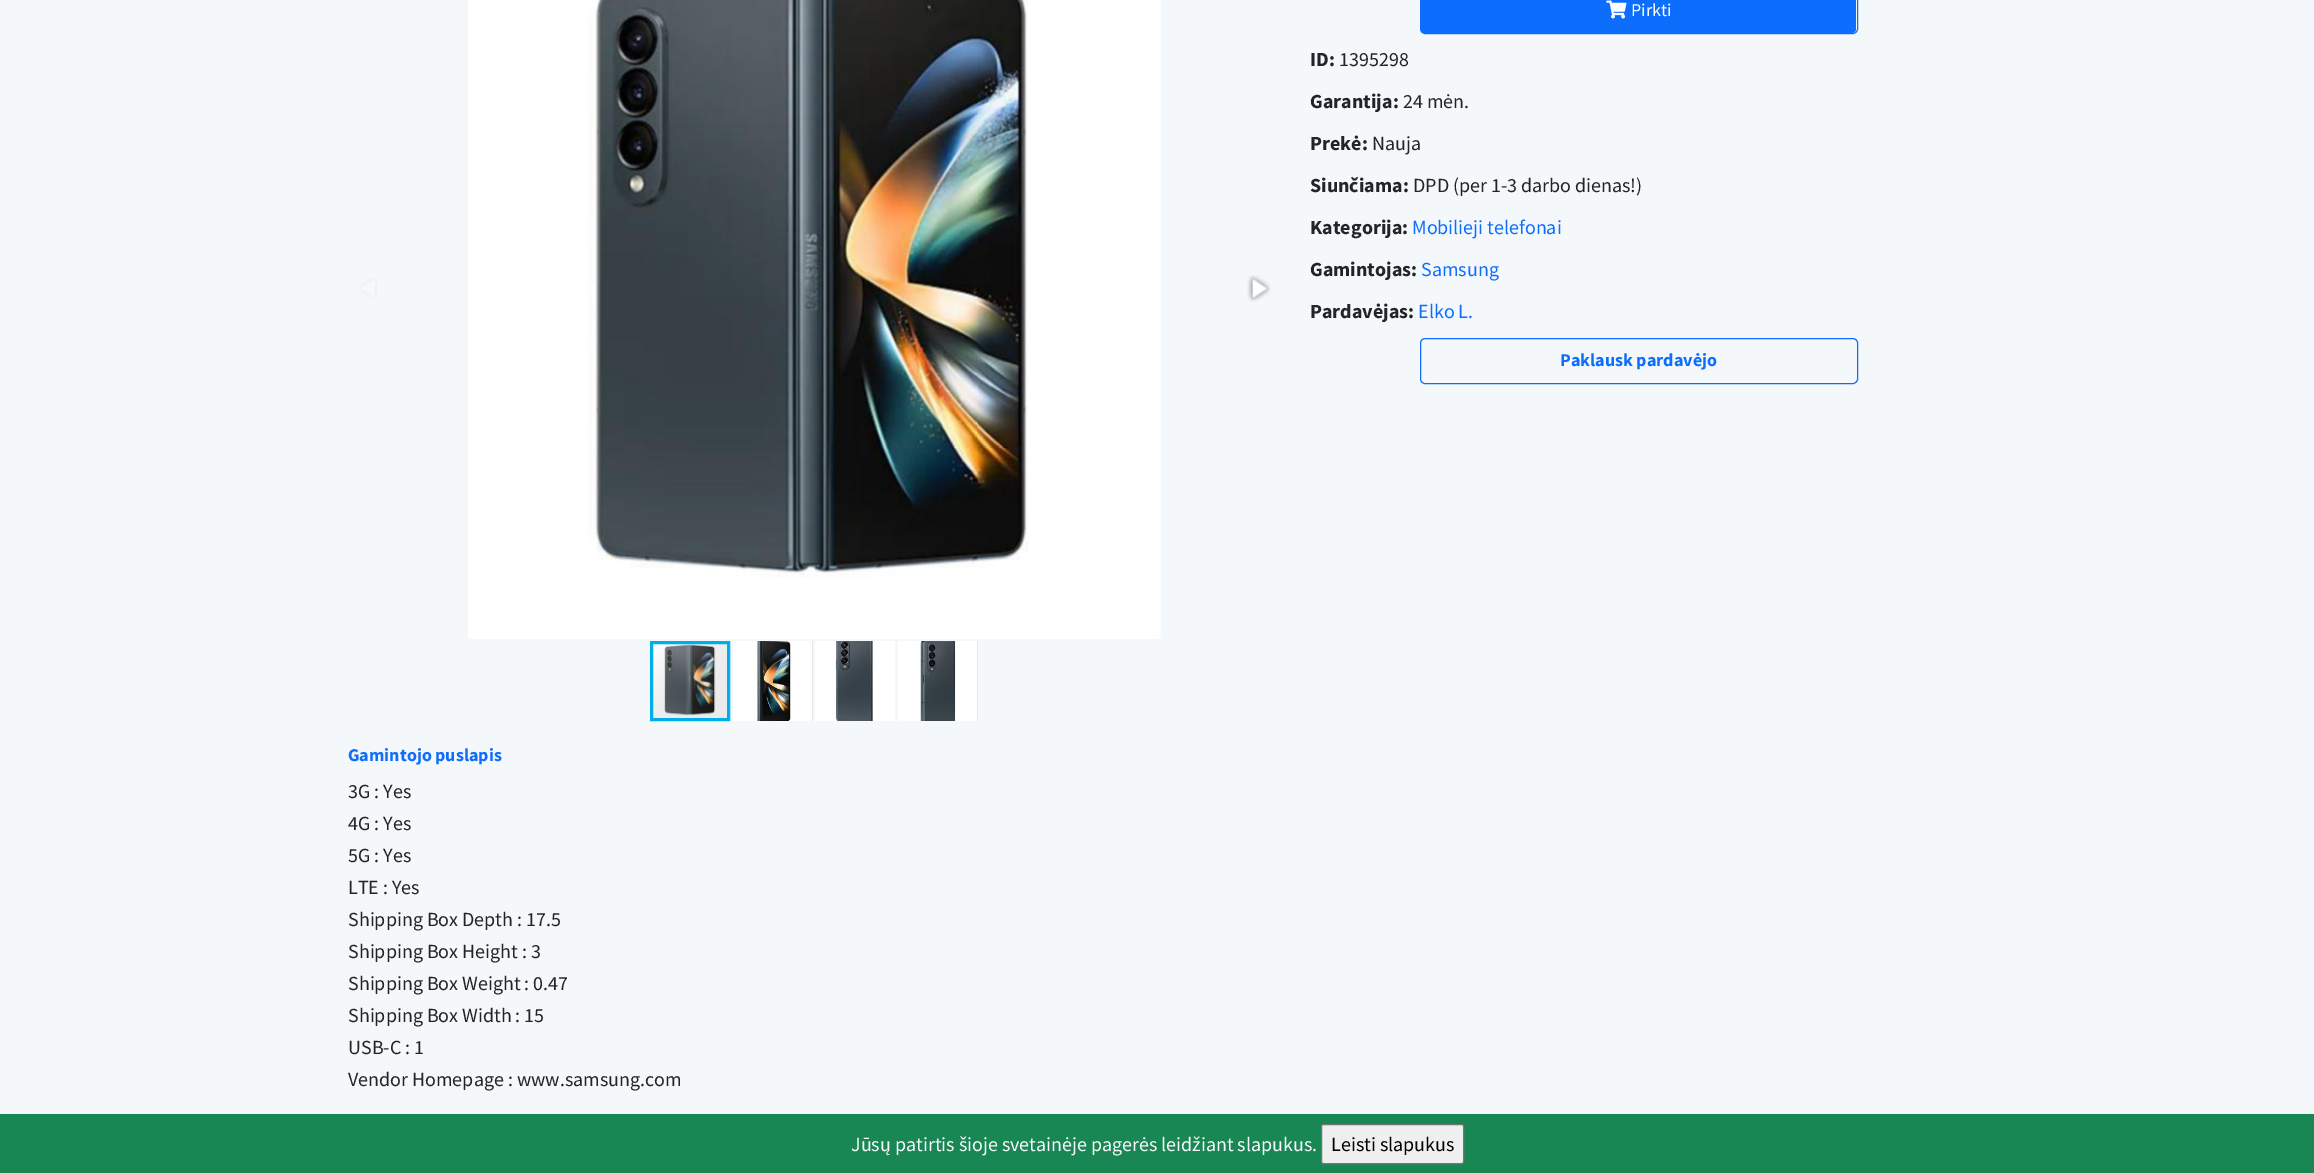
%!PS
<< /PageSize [2314 1173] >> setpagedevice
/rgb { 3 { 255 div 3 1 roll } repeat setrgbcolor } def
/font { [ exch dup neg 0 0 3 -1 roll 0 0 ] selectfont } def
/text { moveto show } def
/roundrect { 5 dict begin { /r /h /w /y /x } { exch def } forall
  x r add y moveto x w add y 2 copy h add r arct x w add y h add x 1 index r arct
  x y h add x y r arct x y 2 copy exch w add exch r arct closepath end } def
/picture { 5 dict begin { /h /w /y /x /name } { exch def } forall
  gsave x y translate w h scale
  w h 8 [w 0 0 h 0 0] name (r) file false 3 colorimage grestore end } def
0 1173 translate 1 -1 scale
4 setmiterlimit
245 248 250 rgb
0 0 2314 1173 rectfill
(img_01.rgb) 360 278 17 21 picture
(img_02.rgb) 468 0 693 639 picture
(img_03.rgb) 1247 275 24 27 picture
(img_07.rgb) 653 644 74 74 picture
0 175 234 rgb
3 setlinewidth
651.5 642.5 77 77 rectstroke
221 224 225 rgb
812 641 1 80 rectfill
(img_04.rgb) 733 641 80 80 picture
(img_05.rgb) 815 641 80 80 picture
977 641 1 80 rectfill
(img_06.rgb) 898 641 80 80 picture
13 110 253 rgb
1421 -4 435 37 4 roundrect fill
1 setlinewidth
1420.5 -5.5 437 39 4.5 roundrect stroke
(img_08.rgb) 1606 0 21 19 picture
1420.5 338.5 437 45 4.5 roundrect stroke
25 135 84 rgb
0 1114 2314 59 rectfill
239 239 239 rgb
1321.5 1124.5 142 39 2 roundrect gsave fill grestore
118 118 118 rgb
stroke
/SourceSansPro-Regular 18 font
255 255 255 rgb
(Pirkti) 1631 16 text
/SourceSansPro-Bold 20 font
33 37 41 rgb
(ID:) 1310 66 text
/SourceSansPro-Regular 20 font
(1395298) 1339 66 text
/SourceSansPro-Bold 20 font
(Garantija:) 1310 108 text
/SourceSansPro-Regular 20 font
(24 mėn.) 1403 108 text
/SourceSansPro-Bold 20 font
(Prekė:) 1310 150 text
/SourceSansPro-Regular 20 font
(Nauja) 1372 150 text
/SourceSansPro-Bold 20 font
(Siunčiama:) 1310 192 text
/SourceSansPro-Regular 20 font
(DPD \(per 1-3 darbo dienas!\)) 1413 192 text
/SourceSansPro-Bold 20 font
(Kategorija:) 1310 234 text
/SourceSansPro-Regular 20 font
13 110 253 rgb
(Mobilieji telefonai) 1412 234 text
/SourceSansPro-Bold 20 font
33 37 41 rgb
(Gamintojas:) 1310 276 text
/SourceSansPro-Regular 20 font
13 110 253 rgb
(Samsung) 1421 276 text
/SourceSansPro-Bold 20 font
33 37 41 rgb
(Pardavėjas:) 1310 318 text
/SourceSansPro-Regular 20 font
13 110 253 rgb
(Elko L.) 1418 318 text
/SourceSansPro-Bold 18 font
(Paklausk pardavėjo) 1560 366 text
(Gamintojo puslapis) 348 761 text
/SourceSansPro-Regular 20 font
33 37 41 rgb
(3G : Yes) 348 798 text
(4G : Yes) 348 830 text
(5G : Yes) 348 862 text
(LTE : Yes) 348 894 text
(Shipping Box Depth : 17.5) 348 926 text
(Shipping Box Height : 3) 348 958 text
(Shipping Box Weight : 0.47) 348 990 text
(Shipping Box Width : 15) 348 1022 text
(USB-C : 1) 348 1054 text
(Vendor Homepage : www.samsung.com) 348 1086 text
248 249 250 rgb
(Jūsų patirtis šioje svetainėje pagerės leidžiant slapukus.) 851 1151 text
0 0 0 rgb
(Leisti slapukus) 1331 1151 text
showpage
